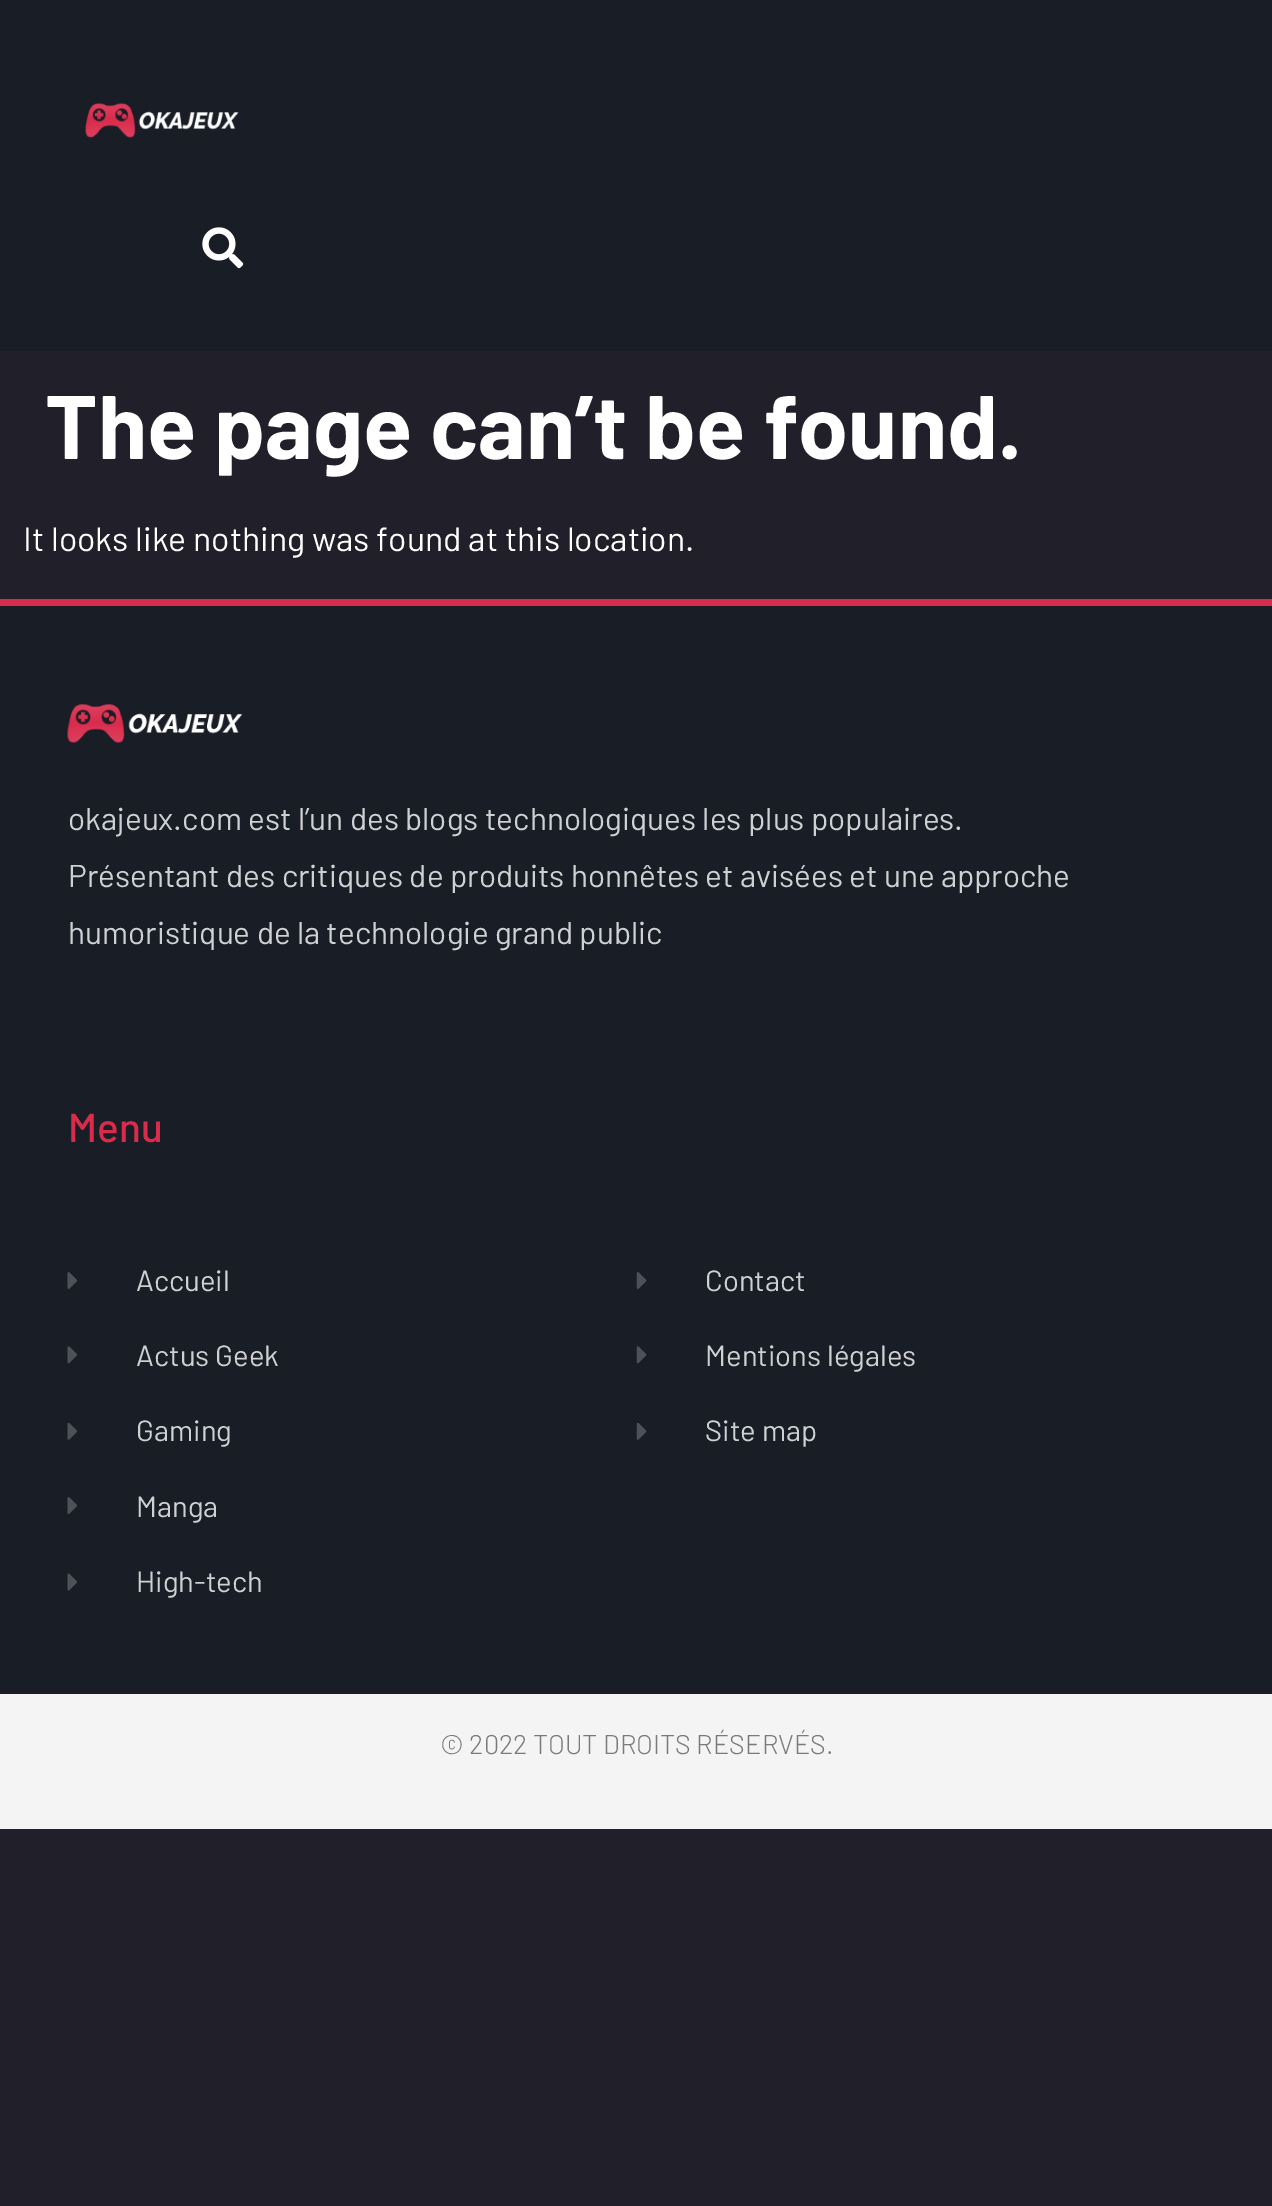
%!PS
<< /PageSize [1272 2206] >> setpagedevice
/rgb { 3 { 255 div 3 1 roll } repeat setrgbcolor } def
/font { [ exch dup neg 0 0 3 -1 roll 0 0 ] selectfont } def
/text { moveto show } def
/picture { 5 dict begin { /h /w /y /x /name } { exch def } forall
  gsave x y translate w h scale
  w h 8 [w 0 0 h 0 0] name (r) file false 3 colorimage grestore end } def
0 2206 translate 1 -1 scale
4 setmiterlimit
33 31 42 rgb
0 0 1272 2206 rectfill
25 29 38 rgb
0 0 1272 351 rectfill
(img_01.rgb) 85 103 154 35 picture
(img_02.rgb) 202 227 42 42 picture
0 606 1272 1088 rectfill
217 43 76 rgb
0 599 1272 7 rectfill
(img_03.rgb) 67 704 176 39 picture
(img_04.rgb) 67 1272 11 17 picture
(img_05.rgb) 67 1346 10 18 picture
(img_06.rgb) 67 1422 10 18 picture
(img_04.rgb) 67 1497 11 17 picture
(img_07.rgb) 67 1573 10 18 picture
(img_08.rgb) 636 1272 11 17 picture
(img_09.rgb) 636 1346 11 18 picture
(img_10.rgb) 636 1423 11 17 picture
244 244 244 rgb
0 1694 1272 135 rectfill
/Barlow-Bold 90 font
255 255 255 rgb
(The page can’t be found.) 45 459 text
/Barlow-Regular 33.75 font
(It looks like nothing was found at this location.) 23 551 text
/Barlow-Regular 31.5 font
207 208 209 rgb
(okajeux.com est l’un des blogs technologiques les plus populaires.) 68 830 text
(Présentant des critiques de produits honnêtes et avisées et une approche) 68 887 text
(humoristique de la technologie grand public) 68 944 text
/Barlow-Medium 40.5 font
217 43 76 rgb
(Menu) 68 1142 text
/Barlow-Regular 29.25 font
207 208 209 rgb
(Accueil) 136 1291 text
(Actus Geek) 136 1366 text
(Gaming) 136 1441 text
(Manga) 136 1517 text
(High-tech) 136 1592 text
(Contact) 705 1291 text
(Mentions légales) 705 1366 text
(Site map) 705 1441 text
/Barlow-Light 27 font
122 122 122 rgb
(© 2022 TOUT DROITS RÉSERVÉS.) 440 1754 text
showpage
